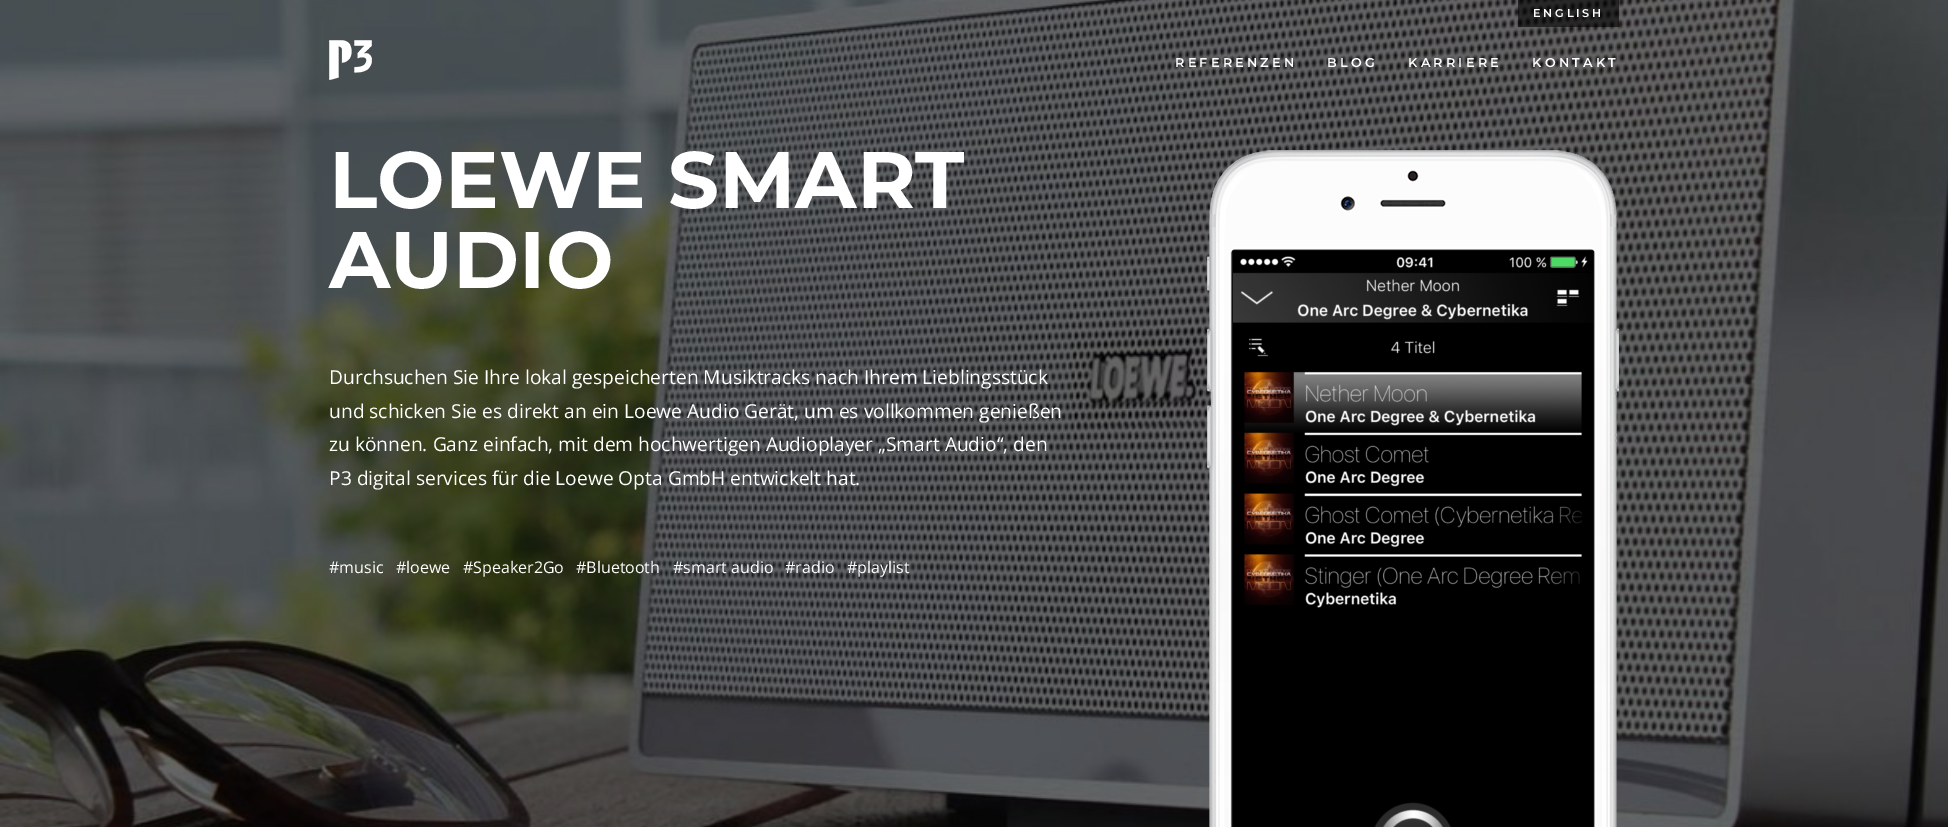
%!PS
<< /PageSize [1948 827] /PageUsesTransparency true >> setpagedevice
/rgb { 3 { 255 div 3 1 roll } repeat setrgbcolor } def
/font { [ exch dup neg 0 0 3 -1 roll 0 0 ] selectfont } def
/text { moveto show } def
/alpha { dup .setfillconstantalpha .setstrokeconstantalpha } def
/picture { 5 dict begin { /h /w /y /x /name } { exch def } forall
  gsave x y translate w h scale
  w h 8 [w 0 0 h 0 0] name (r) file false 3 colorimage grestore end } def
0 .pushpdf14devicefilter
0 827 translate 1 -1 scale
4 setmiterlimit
255 255 255 rgb
0 0 1948 827 rectfill
(img_02.rgb) 0 0 1948 827 picture
0.6 alpha
0 0 0 rgb
1518 0 101 27 rectfill
1 alpha
(img_01.rgb) 329 40 43 40 picture
(img_03.rgb) 1207 150 412 677 picture
(img_04.rgb) 1233 251 360 576 picture
/Montserrat-SemiBold 11.25 font
255 255 255 rgb
1533 17 moveto 2.75 0 (ENGLISH) ashow
/Montserrat-SemiBold 12.75 font
1175 67 moveto 3.25 0 (REFERENZEN) ashow
1327 67 moveto 3.25 0 (BLOG) ashow
1408 67 moveto 3.25 0 (KARRIERE) ashow
1532 67 moveto 3.25 0 (KONTAKT) ashow
/Montserrat-Bold 80 font
(LOEWE SMART) 329 208 text
(AUDIO) 329 288 text
/OpenSans-Regular 19.2 font
(Durchsuchen Sie Ihre lokal gespeicherten Musiktracks nach Ihrem Lieblingsstück) 329 384 text
(und schicken Sie es direkt an ein Loewe Audio Gerät, um es vollkommen genießen) 329 418 text
(zu können. Ganz einfach, mit dem hochwertigen Audioplayer „Smart Audio“, den) 329 451 text
(P3 digital services für die Loewe Opta GmbH entwickelt hat.) 329 485 text
/OpenSans-Regular 16 font
(#music) 329 573 text
(#loewe) 396 573 text
(#Speaker2Go) 463 573 text
(#Bluetooth) 576 573 text
(#smart audio) 673 573 text
(#radio) 785 573 text
(#playlist) 847 573 text
.poppdf14devicefilter showpage
